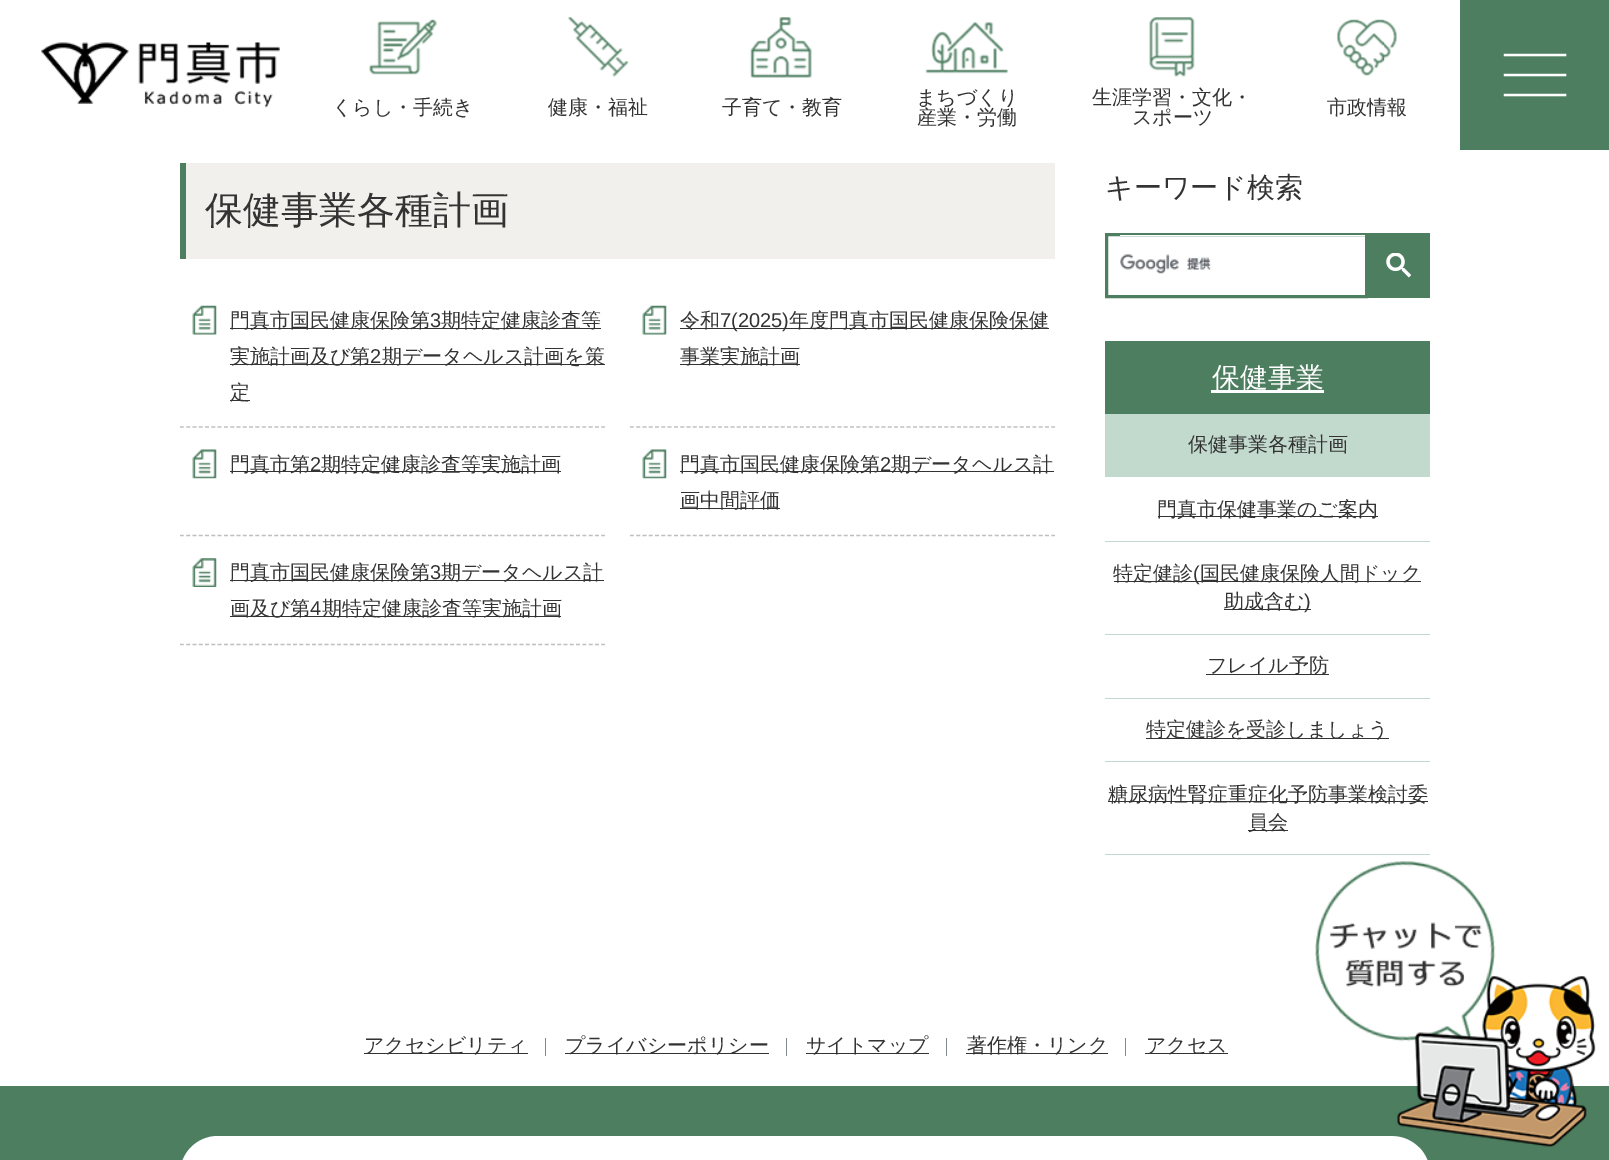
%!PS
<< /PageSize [1609 1160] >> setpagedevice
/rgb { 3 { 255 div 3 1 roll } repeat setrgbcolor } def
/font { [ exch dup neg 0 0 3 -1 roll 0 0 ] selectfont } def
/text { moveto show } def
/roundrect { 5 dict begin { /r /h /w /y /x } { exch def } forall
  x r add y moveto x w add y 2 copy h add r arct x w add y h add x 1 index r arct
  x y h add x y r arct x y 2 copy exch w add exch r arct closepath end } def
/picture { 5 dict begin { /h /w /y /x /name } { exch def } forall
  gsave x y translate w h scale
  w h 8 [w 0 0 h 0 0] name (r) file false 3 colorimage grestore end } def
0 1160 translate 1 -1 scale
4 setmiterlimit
255 255 255 rgb
0 0 1609 1160 rectfill
(img_01.rgb) 41 42 239 66 picture
(img_02.rgb) 369 19 68 56 picture
(img_03.rgb) 568 17 61 60 picture
(img_04.rgb) 750 17 62 61 picture
(img_05.rgb) 925 22 83 52 picture
(img_06.rgb) 1149 17 46 60 picture
(img_07.rgb) 1336 19 61 57 picture
(img_08.rgb) 1460 0 149 150 picture
241 240 236 rgb
186 163 869 96 rectfill
77 126 96 rgb
180 163 6 96 rectfill
(img_09.rgb) 192 305 25 30 picture
191 191 191 rgb
1.2 setlinewidth
[3.75 2.54] 0 setdash
180 427 moveto 425 0 rlineto stroke
51 51 51 rgb
230 328 371 1 rectfill
230 364 375 1 rectfill
230 400 20 1 rectfill
(img_09.rgb) 642 305 25 30 picture
191 191 191 rgb
630 427 moveto 425 0 rlineto stroke
51 51 51 rgb
680 328 369 1 rectfill
680 364 120 1 rectfill
(img_10.rgb) 192 449 25 30 picture
191 191 191 rgb
180 535.5 moveto 425 0 rlineto stroke
51 51 51 rgb
230 471 331 1 rectfill
(img_10.rgb) 642 449 25 30 picture
191 191 191 rgb
630 535.5 moveto 425 0 rlineto stroke
51 51 51 rgb
680 471 374 1 rectfill
680 508 100 1 rectfill
(img_11.rgb) 192 558 25 29 picture
191 191 191 rgb
180 644.5 moveto 425 0 rlineto stroke
51 51 51 rgb
230 580 374 1 rectfill
230 616 331 1 rectfill
77 126 96 rgb
3 setlinewidth
[] 0 setdash
1106.5 234.5 260 62 rectstroke
255 255 255 rgb
1120 235 245 1 rectfill
(img_12.rgb) 1120 254 91 20 picture
77 126 96 rgb
1368 233 62 65 rectfill
(img_13.rgb) 1386 253 25 25 picture
1105 341 325 73 rectfill
255 255 255 rgb
1211 390 113 3 rectfill
194 217 206 rgb
1105 414 325 63 rectfill
1105 541 325 1 rectfill
51 51 51 rgb
1158 516 220 1 rectfill
194 217 206 rgb
1105 634 325 1 rectfill
51 51 51 rgb
1114 581 307 1 rectfill
1224 609 87 1 rectfill
194 217 206 rgb
1105 698 325 1 rectfill
51 51 51 rgb
1206 674 123 1 rectfill
194 217 206 rgb
1105 761 325 1 rectfill
51 51 51 rgb
1146 738 243 1 rectfill
194 217 206 rgb
1105 854 325 1 rectfill
51 51 51 rgb
1108 801 320 1 rectfill
1248 830 40 1 rectfill
364 1053 164 1 rectfill
128 140 143 rgb
545 1038 1 18 rectfill
51 51 51 rgb
565 1053 204 1 rectfill
128 140 143 rgb
786 1038 1 18 rectfill
51 51 51 rgb
806 1053 123 1 rectfill
128 140 143 rgb
946 1038 1 18 rectfill
51 51 51 rgb
966 1053 142 1 rectfill
128 140 143 rgb
1125 1038 1 18 rectfill
51 51 51 rgb
1145 1053 83 1 rectfill
77 126 96 rgb
0 1086 1609 74 rectfill
255 255 255 rgb
180 1136 1250 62 38 roundrect fill
(img_14.rgb) 1315 861 281 286 picture
/WenQuanYiZenHei-Medium 20 font
51 51 51 rgb
(くらし・手続き) 332 114 text
(健康・福祉) 548 114 text
(子育て・教育) 722 114 text
(まちづくり) 916 104 text
(産業・労働) 917 124 text
(生涯学習・文化・) 1092 104 text
(スポーツ) 1132 124 text
(市政情報) 1327 114 text
/WenQuanYiZenHei-Medium 38 font
(保健事業各種計画) 205 223 text
/WenQuanYiZenHei-Medium 20 font
(門真市国民健康保険第) 230 327 text
/LiberationSans-Regular 20 font
(3) 430 327 text
/WenQuanYiZenHei-Medium 20 font
(期特定健康診査等) 441 327 text
(実施計画及び第) 230 363 text
/LiberationSans-Regular 20 font
(2) 370 363 text
/WenQuanYiZenHei-Medium 20 font
(期データヘルス計画を策) 382 363 text
(定) 230 399 text
(令和) 680 327 text
/LiberationSans-Regular 20 font
(7\(2025\)) 720 327 text
/WenQuanYiZenHei-Medium 20 font
(年度門真市国民健康保険保健) 789 327 text
(事業実施計画) 680 363 text
(門真市第) 230 471 text
/LiberationSans-Regular 20 font
(2) 310 471 text
/WenQuanYiZenHei-Medium 20 font
(期特定健康診査等実施計画) 321 471 text
(門真市国民健康保険第) 680 471 text
/LiberationSans-Regular 20 font
(2) 880 471 text
/WenQuanYiZenHei-Medium 20 font
(期データヘルス計) 891 471 text
(画中間評価) 680 507 text
(門真市国民健康保険第) 230 579 text
/LiberationSans-Regular 20 font
(3) 430 579 text
/WenQuanYiZenHei-Medium 20 font
(期データヘルス計) 441 579 text
(画及び第) 230 615 text
/LiberationSans-Regular 20 font
(4) 310 615 text
/WenQuanYiZenHei-Medium 20 font
(期特定健康診査等実施計画) 322 615 text
/WenQuanYiZenHei-Medium 28 font
(キーワード検索) 1105 197 text
255 255 255 rgb
(保健事業) 1212 387 text
/WenQuanYiZenHei-Medium 20 font
51 51 51 rgb
(保健事業各種計画) 1188 451 text
(門真市保健事業のご案内) 1157 516 text
(特定健診) 1113 580 text
/LiberationSans-Regular 20 font
(\() 1193 580 text
/WenQuanYiZenHei-Medium 20 font
(国民健康保険人間ドック) 1200 580 text
(助成含む) 1224 608 text
/LiberationSans-Regular 20 font
(\)) 1304 608 text
/WenQuanYiZenHei-Medium 20 font
(フレイル予防) 1207 672 text
(特定健診を受診しましょう) 1146 736 text
(糖尿病性腎症重症化予防事業検討委) 1108 801 text
(員会) 1248 829 text
(アクセシビリティ) 364 1052 text
(プライバシーポリシー) 565 1052 text
(サイトマップ) 806 1052 text
(著作権・リンク) 967 1052 text
(アクセス) 1146 1052 text
showpage
